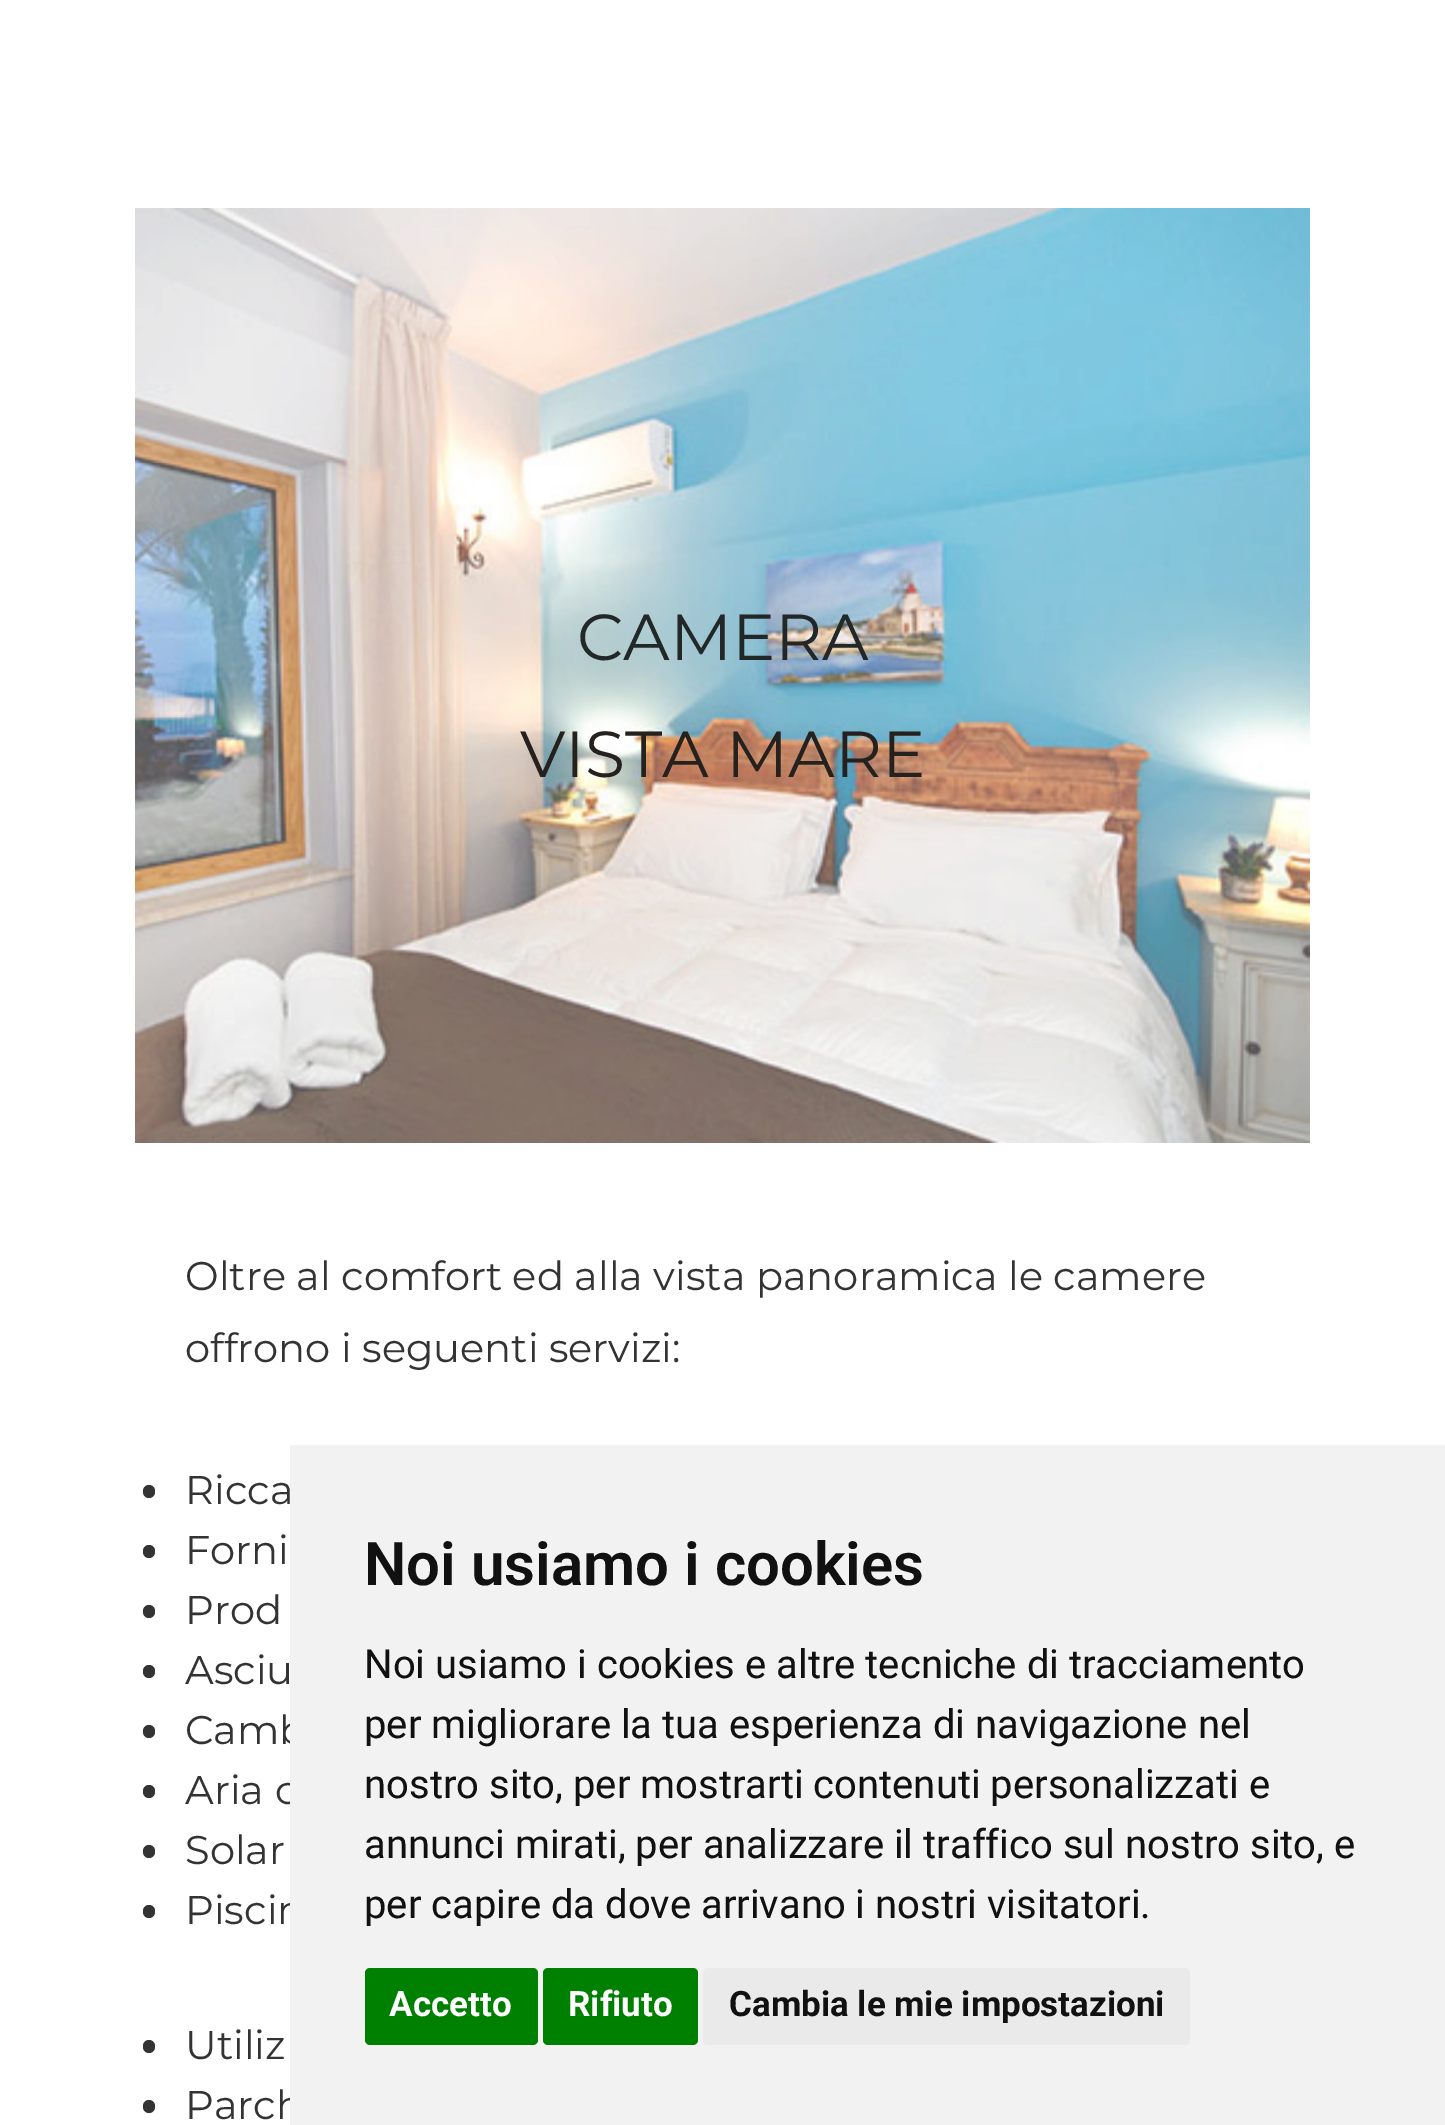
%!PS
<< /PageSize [1445 2125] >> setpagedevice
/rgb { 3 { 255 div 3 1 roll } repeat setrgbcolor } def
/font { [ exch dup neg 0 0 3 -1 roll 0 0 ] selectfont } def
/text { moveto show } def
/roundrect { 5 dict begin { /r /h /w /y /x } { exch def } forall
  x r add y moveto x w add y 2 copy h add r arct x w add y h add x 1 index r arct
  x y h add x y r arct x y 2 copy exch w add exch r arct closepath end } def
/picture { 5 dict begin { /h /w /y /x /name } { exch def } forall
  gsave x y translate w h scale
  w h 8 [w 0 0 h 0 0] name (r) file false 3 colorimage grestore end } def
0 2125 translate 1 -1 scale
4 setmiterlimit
255 255 255 rgb
0 0 1445 2125 rectfill
(img_01.rgb) 135 208 1175 935 picture
51 51 51 rgb
143 1485 12 13 6 roundrect fill
143 1545 12 13 6 roundrect fill
143 1605 12 13 6 roundrect fill
143 1665 12 13 6 roundrect fill
143 1725 12 13 6 roundrect fill
143 1785 12 13 6 roundrect fill
143 1845 12 13 6 roundrect fill
143 1905 12 13 6 roundrect fill
143 2040 12 13 6 roundrect fill
143 2100 12 13 6 roundrect fill
/Montserrat-Thin 65 font
34 39 40 rgb
(CAMERA) 577 660 text
37 33 30 rgb
(VISTA MARE) 520 777 text
/Montserrat-Thin 40 font
51 51 51 rgb
(Oltre al comfort ed alla vista panoramica le camere) 185 1290 text
(offrono i seguenti servizi:) 185 1362 text
(Ricca) 185 1504 text
(Forni) 185 1564 text
(Prod) 185 1624 text
(Asciu) 185 1684 text
(Camb) 185 1744 text
(Aria c) 185 1804 text
(Solar) 185 1864 text
(Piscin) 185 1924 text
(Utiliz) 185 2059 text
(Parch) 185 2119 text
242 242 242 rgb
290 1445 1155 680 rectfill
/Roboto-SemiBold 60 font
17 17 17 rgb
(Noi usiamo i cookies) 364 1585 text
/Roboto-Regular 40 font
(Noi usiamo i cookies e altre tecniche di tracciamento) 364 1678 text
(per migliorare la tua esperienza di navigazione nel) 364 1738 text
(nostro sito, per mostrarti contenuti personalizzati e) 364 1798 text
(annunci mirati, per analizzare il traffico sul nostro sito, e) 364 1858 text
(per capire da dove arrivano i nostri visitatori.) 364 1918 text
0 128 0 rgb
365 1968 173 77 5 roundrect fill
/Roboto-Bold 35 font
255 255 255 rgb
(Accetto) 389 2016 text
0 128 0 rgb
543 1968 155 77 5 roundrect fill
255 255 255 rgb
(Rifiuto) 568 2016 text
234 234 234 rgb
703 1968 487 77 5 roundrect fill
17 17 17 rgb
(Cambia le mie impostazioni) 729 2016 text
showpage
